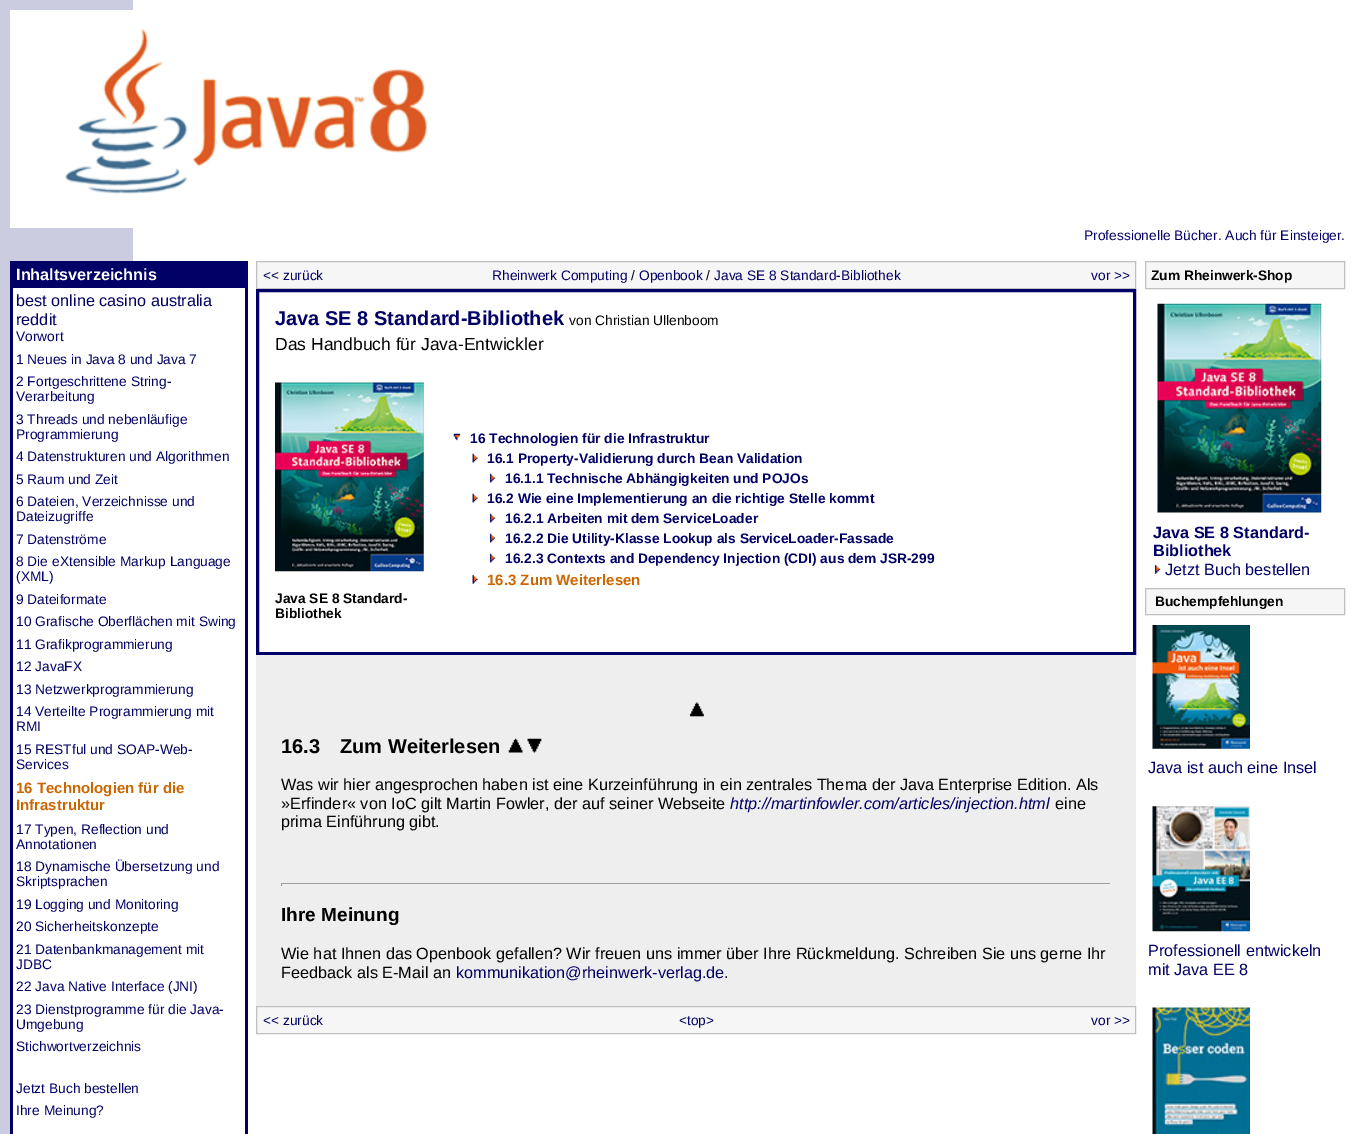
%!PS
<< /PageSize [1354 1134] >> setpagedevice
/rgb { 3 { 255 div 3 1 roll } repeat setrgbcolor } def
/font { [ exch dup neg 0 0 3 -1 roll 0 0 ] selectfont } def
/text { moveto show } def
/picture { 5 dict begin { /h /w /y /x /name } { exch def } forall
  gsave x y translate w h scale
  w h 8 [w 0 0 h 0 0] name (r) file false 3 colorimage grestore end } def
0 1134 translate 1 -1 scale
4 setmiterlimit
255 255 255 rgb
0 0 1354 1134 rectfill
204 204 225 rgb
0 0 133 1134 rectfill
255 255 255 rgb
10 10 123 218 rectfill
(img_01.rgb) 65 28 363 166 picture
13 288 120 846 rectfill
0 0 102 rgb
245 261 3 873 rectfill
10 261 3 873 rectfill
13 261 232 27 rectfill
246 246 246 rgb
256.5 261.5 moveto 879 0 rlineto 0 27 rlineto -879 0 rlineto closepath gsave fill grestore
192 192 192 rgb
stroke
0 0 102 rgb
3 setlinewidth
257.5 290.5 877 363 rectstroke
(img_02.rgb) 453 433 8 8 picture
(img_03.rgb) 472 453 6 10 picture
(img_04.rgb) 489 473 7 10 picture
(img_03.rgb) 472 493 6 10 picture
(img_04.rgb) 489 513 7 10 picture
(img_04.rgb) 489 533 7 10 picture
(img_04.rgb) 489 553 7 10 picture
(img_05.rgb) 472 574 6 10 picture
(img_06.rgb) 275 382 149 190 picture
238 238 238 rgb
256 655 880 351 rectfill
(img_07.rgb) 689 702 15 15 picture
(img_08.rgb) 508 738 15 15 picture
(img_09.rgb) 527 738 15 15 picture
159 159 159 rgb
281 883 830 1 rectfill
238 238 238 rgb
1110 883 1 3 rectfill
159 159 159 rgb
281 883 1 3 rectfill
246 246 246 rgb
256.5 1006.5 moveto 879 0 rlineto 0 27 rlineto -879 0 rlineto closepath gsave fill grestore
192 192 192 rgb
1 setlinewidth
stroke
246 246 246 rgb
1145.5 261.5 moveto 199 0 rlineto 0 27 rlineto -199 0 rlineto closepath gsave fill grestore
192 192 192 rgb
stroke
(img_10.rgb) 1157 303 165 210 picture
(img_11.rgb) 1154 564 7 10 picture
246 246 246 rgb
1145.5 588.5 moveto 199 0 rlineto 0 26 rlineto -199 0 rlineto closepath gsave fill grestore
192 192 192 rgb
stroke
(img_12.rgb) 1152 625 98 124 picture
(img_13.rgb) 1152 806 98 126 picture
(img_14.rgb) 1152 1007 98 127 picture
/LiberationSans-Regular 13.75 font
0 0 102 rgb
(Professionelle Bücher. Auch für Einsteiger.) 1084 240 text
/LiberationSans-Bold 16.25 font
255 255 255 rgb
(Inhaltsverzeichnis) 16 280 text
/LiberationSans-Regular 16.25 font
0 0 102 rgb
(best online casino australia) 16 306 text
(reddit) 16 325 text
/LiberationSans-Regular 13.75 font
(Vorwort) 16 341 text
(1 Neues in Java 8 und Java 7) 16 364 text
(2 Fortgeschrittene String-) 16 386 text
(Verarbeitung) 16 401 text
(3 Threads und nebenläufige) 16 424 text
(Programmierung) 16 439 text
(4 Datenstrukturen und Algorithmen) 16 461 text
(5 Raum und Zeit) 16 484 text
(6 Dateien, Verzeichnisse und) 16 506 text
(Dateizugriffe) 16 521 text
(7 Datenströme) 16 544 text
(8 Die eXtensible Markup Language) 16 566 text
(\(XML\)) 16 581 text
(9 Dateiformate) 16 604 text
(10 Grafische Oberflächen mit Swing) 16 626 text
(11 Grafikprogrammierung) 16 649 text
(12 JavaFX) 16 671 text
(13 Netzwerkprogrammierung) 16 694 text
(14 Verteilte Programmierung mit) 16 716 text
(RMI) 16 731 text
(15 RESTful und SOAP-Web-) 16 754 text
(Services) 16 769 text
/LiberationSans-Bold 15 font
204 102 0 rgb
(16 Technologien für die) 16 793 text
(Infrastruktur) 16 810 text
/LiberationSans-Regular 13.75 font
0 0 102 rgb
(17 Typen, Reflection und) 16 834 text
(Annotationen) 16 849 text
(18 Dynamische Übersetzung und) 16 871 text
(Skriptsprachen) 16 886 text
(19 Logging und Monitoring) 16 909 text
(20 Sicherheitskonzepte) 16 931 text
(21 Datenbankmanagement mit) 16 954 text
(JDBC) 16 969 text
(22 Java Native Interface \(JNI\)) 16 991 text
(23 Dienstprogramme für die Java-) 16 1014 text
(Umgebung) 16 1029 text
(Stichwortverzeichnis) 16 1051 text
(Jetzt Buch bestellen) 16 1093 text
(Ihre Meinung?) 16 1115 text
(<< zurück) 263 280 text
(Rheinwerk Computing) 492 280 text
0 0 0 rgb
(/) 631 280 text
0 0 102 rgb
(Openbook) 639 280 text
0 0 0 rgb
(/) 706 280 text
0 0 102 rgb
(Java SE 8 Standard-Bibliothek) 714 280 text
(vor >>) 1091 280 text
/LiberationSans-Bold 20 font
(Java SE 8 Standard-Bibliothek) 275 325 text
/LiberationSans-Regular 13.75 font
0 0 0 rgb
(von Christian Ullenboom) 569 325 text
/LiberationSans-Regular 17.5 font
(Das Handbuch für Java-Entwickler) 275 350 text
/LiberationSans-Bold 13.75 font
0 0 102 rgb
(16 Technologien für die Infrastruktur) 470 443 text
(16.1 Property-Validierung durch Bean Validation) 487 463 text
(16.1.1 Technische Abhängigkeiten und POJOs) 505 483 text
(16.2 Wie eine Implementierung an die richtige Stelle kommt) 487 503 text
(16.2.1 Arbeiten mit dem ServiceLoader) 505 523 text
(16.2.2 Die Utility-Klasse Lookup als ServiceLoader-Fassade) 505 543 text
(16.2.3 Contexts and Dependency Injection \(CDI\) aus dem JSR-299) 505 563 text
/LiberationSans-Bold 15 font
204 102 0 rgb
(16.3 Zum Weiterlesen) 487 585 text
/LiberationSans-Bold 13.75 font
0 0 0 rgb
(Java SE 8 Standard-) 275 603 text
(Bibliothek) 275 618 text
/LiberationSans-Bold 20 font
(16.3) 281 753 text
(Zum Weiterlesen) 340 753 text
/LiberationSans-Regular 16.25 font
(Was wir hier angesprochen haben ist eine Kurzeinführung in ein zentrales Thema der Java Enterprise Edition. Als) 281 790 text
(»Erfinder« von IoC gilt Martin Fowler, der auf seiner Webseite) 281 809 text
/LiberationSans-Italic 16.25 font
0 0 102 rgb
(http://martinfowler.com/articles/injection.html) 730 809 text
/LiberationSans-Regular 16.25 font
0 0 0 rgb
(eine) 1055 809 text
(prima Einführung gibt.) 281 827 text
/LiberationSans-Bold 19 font
(Ihre Meinung) 281 921 text
/LiberationSans-Regular 16.25 font
(Wie hat Ihnen das Openbook gefallen? Wir freuen uns immer über Ihre Rückmeldung. Schreiben Sie uns gerne Ihr) 281 959 text
(Feedback als E-Mail an) 281 978 text
0 0 102 rgb
(kommunikation@rheinwerk-verlag.de) 456 978 text
0 0 0 rgb
(.) 724 978 text
/LiberationSans-Regular 13.75 font
0 0 102 rgb
(<< zurück) 263 1025 text
(<top>) 679 1025 text
(vor >>) 1091 1025 text
/LiberationSans-Bold 13.75 font
0 0 0 rgb
(Zum Rheinwerk-Shop) 1151 280 text
/LiberationSans-Bold 16.25 font
0 0 102 rgb
(Java SE 8 Standard-) 1153 538 text
(Bibliothek) 1153 556 text
/LiberationSans-Regular 16.25 font
(Jetzt Buch bestellen) 1165 575 text
/LiberationSans-Bold 13.75 font
0 0 0 rgb
(Buchempfehlungen) 1155 606 text
/LiberationSans-Regular 16.25 font
0 0 102 rgb
(Java ist auch eine Insel) 1148 773 text
(Professionell entwickeln) 1148 956 text
(mit Java EE 8) 1148 975 text
showpage
